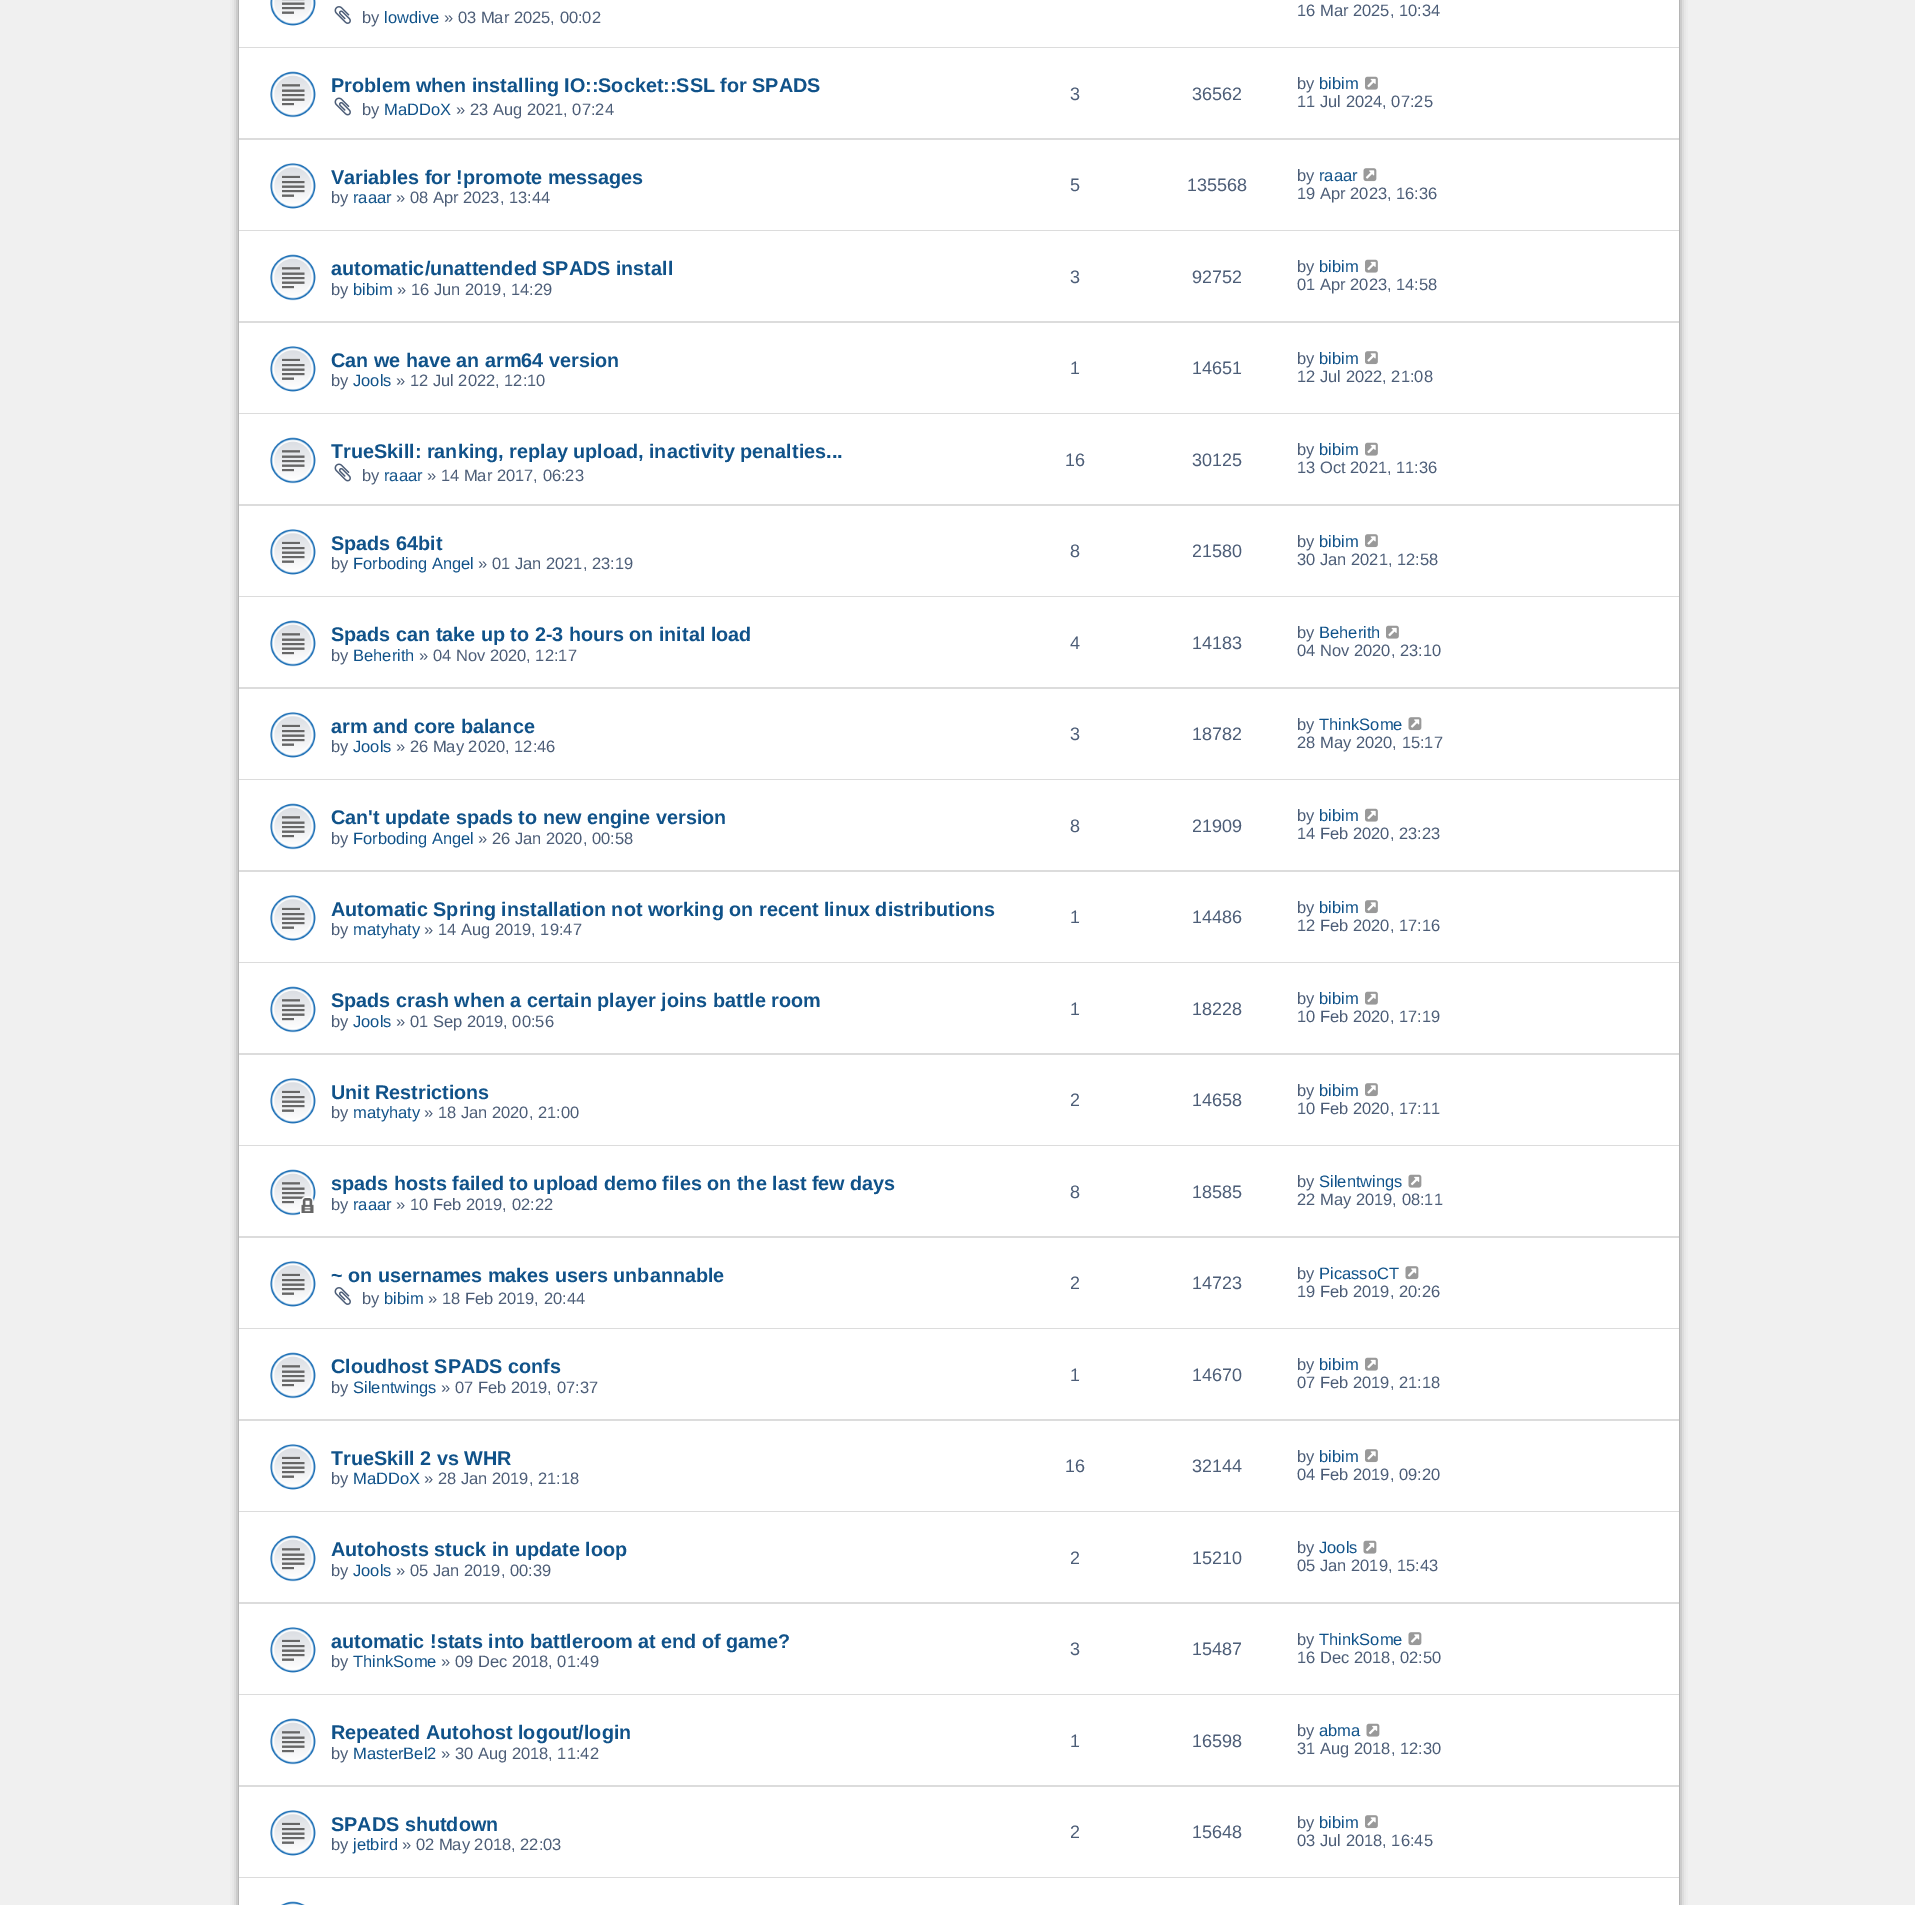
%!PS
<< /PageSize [1915 1905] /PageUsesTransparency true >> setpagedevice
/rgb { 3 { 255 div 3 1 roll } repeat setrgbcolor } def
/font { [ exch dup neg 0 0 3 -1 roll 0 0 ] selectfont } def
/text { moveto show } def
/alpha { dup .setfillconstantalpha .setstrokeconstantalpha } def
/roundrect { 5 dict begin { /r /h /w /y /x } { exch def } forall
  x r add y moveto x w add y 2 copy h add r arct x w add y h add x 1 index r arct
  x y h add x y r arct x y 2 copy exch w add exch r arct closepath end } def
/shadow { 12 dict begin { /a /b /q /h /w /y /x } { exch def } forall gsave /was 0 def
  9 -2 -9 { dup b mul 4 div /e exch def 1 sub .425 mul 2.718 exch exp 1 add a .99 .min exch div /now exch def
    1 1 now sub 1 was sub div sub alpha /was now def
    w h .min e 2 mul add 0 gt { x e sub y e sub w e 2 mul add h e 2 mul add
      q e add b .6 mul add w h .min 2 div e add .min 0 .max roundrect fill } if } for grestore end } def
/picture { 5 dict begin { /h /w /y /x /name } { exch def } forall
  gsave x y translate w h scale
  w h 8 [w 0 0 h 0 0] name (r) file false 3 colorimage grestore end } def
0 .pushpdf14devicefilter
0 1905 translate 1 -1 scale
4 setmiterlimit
240 240 240 rgb
0 0 1915 1905 rectfill
0 0 0 rgb
239 -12 1440 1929 0 4 0.5 shadow
255 255 255 rgb
239 0 1440 1877 rectfill
220 220 220 rgb
239 47 1440 1 rectfill
(img_01.rgb) 270 0 46 26 picture
(img_02.rgb) 334 6 17 18 picture
239 138 1440 2 rectfill
(img_03.rgb) 270 71 46 47 picture
(img_04.rgb) 334 97 17 19 picture
(img_05.rgb) 1365 76 13 14 picture
239 230 1440 1 rectfill
(img_06.rgb) 270 163 46 46 picture
(img_07.rgb) 1363 168 14 14 picture
239 321 1440 2 rectfill
(img_03.rgb) 270 254 46 47 picture
(img_05.rgb) 1365 259 13 14 picture
239 413 1440 1 rectfill
(img_06.rgb) 270 346 46 46 picture
(img_08.rgb) 1365 351 13 14 picture
239 504 1440 2 rectfill
(img_03.rgb) 270 437 46 47 picture
(img_04.rgb) 334 463 17 19 picture
(img_05.rgb) 1365 442 13 14 picture
239 596 1440 1 rectfill
(img_06.rgb) 270 529 46 46 picture
(img_08.rgb) 1365 534 13 14 picture
239 687 1440 2 rectfill
(img_03.rgb) 270 620 46 47 picture
(img_05.rgb) 1386 625 13 14 picture
239 779 1440 1 rectfill
(img_06.rgb) 270 712 46 46 picture
(img_07.rgb) 1408 717 14 14 picture
239 870 1440 2 rectfill
(img_03.rgb) 270 803 46 47 picture
(img_05.rgb) 1365 808 13 14 picture
239 962 1440 1 rectfill
(img_06.rgb) 270 895 46 46 picture
(img_08.rgb) 1365 900 13 14 picture
239 1053 1440 2 rectfill
(img_03.rgb) 270 986 46 47 picture
(img_05.rgb) 1365 991 13 14 picture
239 1145 1440 1 rectfill
(img_06.rgb) 270 1078 46 46 picture
(img_08.rgb) 1365 1083 13 14 picture
239 1236 1440 2 rectfill
(img_09.rgb) 270 1169 46 47 picture
(img_10.rgb) 1408 1174 14 14 picture
239 1328 1440 1 rectfill
(img_06.rgb) 270 1261 46 46 picture
(img_02.rgb) 334 1287 17 18 picture
(img_07.rgb) 1405 1266 14 14 picture
239 1419 1440 2 rectfill
(img_03.rgb) 270 1352 46 47 picture
(img_05.rgb) 1365 1357 13 14 picture
239 1511 1440 1 rectfill
(img_06.rgb) 270 1444 46 46 picture
(img_08.rgb) 1365 1449 13 14 picture
239 1602 1440 2 rectfill
(img_03.rgb) 270 1535 46 47 picture
(img_10.rgb) 1363 1540 14 14 picture
239 1694 1440 1 rectfill
(img_06.rgb) 270 1627 46 46 picture
(img_07.rgb) 1408 1632 14 14 picture
239 1785 1440 2 rectfill
(img_03.rgb) 270 1718 46 47 picture
(img_10.rgb) 1366 1723 14 14 picture
239 1877 1440 1 rectfill
(img_06.rgb) 270 1810 46 46 picture
(img_08.rgb) 1365 1815 13 14 picture
255 255 255 rgb
239 1878 1440 27 rectfill
(img_11.rgb) 281 1901 24 4 picture
/LiberationSans-Regular 16.5 font
76 93 119 rgb
(by) 362 23 text
16 82 137 rgb
(lowdive) 384 23 text
76 93 119 rgb
(» 03 Mar 2025, 00:02) 444 23 text
(16 Mar 2025, 10:34) 1297 16 text
/LiberationSans-Bold 19.8 font
16 82 137 rgb
(Problem when installing IO::Socket::SSL for SPADS) 331 92 text
/LiberationSans-Regular 16.5 font
76 93 119 rgb
(by) 362 115 text
16 82 137 rgb
(MaDDoX) 384 115 text
76 93 119 rgb
(» 23 Aug 2021, 07:24) 456 115 text
/LiberationSans-Regular 18 font
(3) 1070 100 text
(36562) 1192 100 text
/LiberationSans-Regular 16.5 font
(by) 1297 89 text
16 82 137 rgb
(bibim) 1319 89 text
76 93 119 rgb
(11 Jul 2024, 07:25) 1297 107 text
/LiberationSans-Bold 19.8 font
16 82 137 rgb
(Variables for !promote messages) 331 184 text
/LiberationSans-Regular 16.5 font
76 93 119 rgb
(by) 331 203 text
16 82 137 rgb
(raaar) 353 203 text
76 93 119 rgb
(» 08 Apr 2023, 13:44) 396 203 text
/LiberationSans-Regular 18 font
(5) 1070 191 text
(135568) 1187 191 text
/LiberationSans-Regular 16.5 font
(by) 1297 181 text
16 82 137 rgb
(raaar) 1319 181 text
76 93 119 rgb
(19 Apr 2023, 16:36) 1297 199 text
/LiberationSans-Bold 19.8 font
16 82 137 rgb
(automatic/unattended SPADS install) 331 275 text
/LiberationSans-Regular 16.5 font
76 93 119 rgb
(by) 331 295 text
16 82 137 rgb
(bibim) 353 295 text
76 93 119 rgb
(» 16 Jun 2019, 14:29) 397 295 text
/LiberationSans-Regular 18 font
(3) 1070 283 text
(92752) 1192 283 text
/LiberationSans-Regular 16.5 font
(by) 1297 272 text
16 82 137 rgb
(bibim) 1319 272 text
76 93 119 rgb
(01 Apr 2023, 14:58) 1297 290 text
/LiberationSans-Bold 19.8 font
16 82 137 rgb
(Can we have an arm64 version) 331 367 text
/LiberationSans-Regular 16.5 font
76 93 119 rgb
(by) 331 386 text
16 82 137 rgb
(Jools) 353 386 text
76 93 119 rgb
(» 12 Jul 2022, 12:10) 396 386 text
/LiberationSans-Regular 18 font
(1) 1070 374 text
(14651) 1192 374 text
/LiberationSans-Regular 16.5 font
(by) 1297 364 text
16 82 137 rgb
(bibim) 1319 364 text
76 93 119 rgb
(12 Jul 2022, 21:08) 1297 382 text
/LiberationSans-Bold 19.8 font
16 82 137 rgb
(TrueSkill: ranking, replay upload, inactivity penalties...) 331 458 text
/LiberationSans-Regular 16.5 font
76 93 119 rgb
(by) 362 481 text
16 82 137 rgb
(raaar) 384 481 text
76 93 119 rgb
(» 14 Mar 2017, 06:23) 427 481 text
/LiberationSans-Regular 18 font
(16) 1065 466 text
(30125) 1192 466 text
/LiberationSans-Regular 16.5 font
(by) 1297 455 text
16 82 137 rgb
(bibim) 1319 455 text
76 93 119 rgb
(13 Oct 2021, 11:36) 1297 473 text
/LiberationSans-Bold 19.8 font
16 82 137 rgb
(Spads 64bit) 331 550 text
/LiberationSans-Regular 16.5 font
76 93 119 rgb
(by) 331 569 text
16 82 137 rgb
(Forboding Angel) 353 569 text
76 93 119 rgb
(» 01 Jan 2021, 23:19) 478 569 text
/LiberationSans-Regular 18 font
(8) 1070 557 text
(21580) 1192 557 text
/LiberationSans-Regular 16.5 font
(by) 1297 547 text
16 82 137 rgb
(bibim) 1319 547 text
76 93 119 rgb
(30 Jan 2021, 12:58) 1297 565 text
/LiberationSans-Bold 19.8 font
16 82 137 rgb
(Spads can take up to 2-3 hours on inital load) 331 641 text
/LiberationSans-Regular 16.5 font
76 93 119 rgb
(by) 331 661 text
16 82 137 rgb
(Beherith) 353 661 text
76 93 119 rgb
(» 04 Nov 2020, 12:17) 419 661 text
/LiberationSans-Regular 18 font
(4) 1070 649 text
(14183) 1192 649 text
/LiberationSans-Regular 16.5 font
(by) 1297 638 text
16 82 137 rgb
(Beherith) 1319 638 text
76 93 119 rgb
(04 Nov 2020, 23:10) 1297 656 text
/LiberationSans-Bold 19.8 font
16 82 137 rgb
(arm and core balance) 331 733 text
/LiberationSans-Regular 16.5 font
76 93 119 rgb
(by) 331 752 text
16 82 137 rgb
(Jools) 353 752 text
76 93 119 rgb
(» 26 May 2020, 12:46) 396 752 text
/LiberationSans-Regular 18 font
(3) 1070 740 text
(18782) 1192 740 text
/LiberationSans-Regular 16.5 font
(by) 1297 730 text
16 82 137 rgb
(ThinkSome) 1319 730 text
76 93 119 rgb
(28 May 2020, 15:17) 1297 748 text
/LiberationSans-Bold 19.8 font
16 82 137 rgb
(Can't update spads to new engine version) 331 824 text
/LiberationSans-Regular 16.5 font
76 93 119 rgb
(by) 331 844 text
16 82 137 rgb
(Forboding Angel) 353 844 text
76 93 119 rgb
(» 26 Jan 2020, 00:58) 478 844 text
/LiberationSans-Regular 18 font
(8) 1070 832 text
(21909) 1192 832 text
/LiberationSans-Regular 16.5 font
(by) 1297 821 text
16 82 137 rgb
(bibim) 1319 821 text
76 93 119 rgb
(14 Feb 2020, 23:23) 1297 839 text
/LiberationSans-Bold 19.8 font
16 82 137 rgb
(Automatic Spring installation not working on recent linux distributions) 331 916 text
/LiberationSans-Regular 16.5 font
76 93 119 rgb
(by) 331 935 text
16 82 137 rgb
(matyhaty) 353 935 text
76 93 119 rgb
(» 14 Aug 2019, 19:47) 424 935 text
/LiberationSans-Regular 18 font
(1) 1070 923 text
(14486) 1192 923 text
/LiberationSans-Regular 16.5 font
(by) 1297 913 text
16 82 137 rgb
(bibim) 1319 913 text
76 93 119 rgb
(12 Feb 2020, 17:16) 1297 931 text
/LiberationSans-Bold 19.8 font
16 82 137 rgb
(Spads crash when a certain player joins battle room) 331 1007 text
/LiberationSans-Regular 16.5 font
76 93 119 rgb
(by) 331 1027 text
16 82 137 rgb
(Jools) 353 1027 text
76 93 119 rgb
(» 01 Sep 2019, 00:56) 396 1027 text
/LiberationSans-Regular 18 font
(1) 1070 1015 text
(18228) 1192 1015 text
/LiberationSans-Regular 16.5 font
(by) 1297 1004 text
16 82 137 rgb
(bibim) 1319 1004 text
76 93 119 rgb
(10 Feb 2020, 17:19) 1297 1022 text
/LiberationSans-Bold 19.8 font
16 82 137 rgb
(Unit Restrictions) 331 1099 text
/LiberationSans-Regular 16.5 font
76 93 119 rgb
(by) 331 1118 text
16 82 137 rgb
(matyhaty) 353 1118 text
76 93 119 rgb
(» 18 Jan 2020, 21:00) 424 1118 text
/LiberationSans-Regular 18 font
(2) 1070 1106 text
(14658) 1192 1106 text
/LiberationSans-Regular 16.5 font
(by) 1297 1096 text
16 82 137 rgb
(bibim) 1319 1096 text
76 93 119 rgb
(10 Feb 2020, 17:11) 1297 1114 text
/LiberationSans-Bold 19.8 font
16 82 137 rgb
(spads hosts failed to upload demo files on the last few days) 331 1190 text
/LiberationSans-Regular 16.5 font
76 93 119 rgb
(by) 331 1210 text
16 82 137 rgb
(raaar) 353 1210 text
76 93 119 rgb
(» 10 Feb 2019, 02:22) 396 1210 text
/LiberationSans-Regular 18 font
(8) 1070 1198 text
(18585) 1192 1198 text
/LiberationSans-Regular 16.5 font
(by) 1297 1187 text
16 82 137 rgb
(Silentwings) 1319 1187 text
76 93 119 rgb
(22 May 2019, 08:11) 1297 1205 text
/LiberationSans-Bold 19.8 font
16 82 137 rgb
(~ on usernames makes users unbannable) 331 1282 text
/LiberationSans-Regular 16.5 font
76 93 119 rgb
(by) 362 1304 text
16 82 137 rgb
(bibim) 384 1304 text
76 93 119 rgb
(» 18 Feb 2019, 20:44) 428 1304 text
/LiberationSans-Regular 18 font
(2) 1070 1289 text
(14723) 1192 1289 text
/LiberationSans-Regular 16.5 font
(by) 1297 1279 text
16 82 137 rgb
(PicassoCT) 1319 1279 text
76 93 119 rgb
(19 Feb 2019, 20:26) 1297 1297 text
/LiberationSans-Bold 19.8 font
16 82 137 rgb
(Cloudhost SPADS confs) 331 1373 text
/LiberationSans-Regular 16.5 font
76 93 119 rgb
(by) 331 1393 text
16 82 137 rgb
(Silentwings) 353 1393 text
76 93 119 rgb
(» 07 Feb 2019, 07:37) 441 1393 text
/LiberationSans-Regular 18 font
(1) 1070 1381 text
(14670) 1192 1381 text
/LiberationSans-Regular 16.5 font
(by) 1297 1370 text
16 82 137 rgb
(bibim) 1319 1370 text
76 93 119 rgb
(07 Feb 2019, 21:18) 1297 1388 text
/LiberationSans-Bold 19.8 font
16 82 137 rgb
(TrueSkill 2 vs WHR) 331 1465 text
/LiberationSans-Regular 16.5 font
76 93 119 rgb
(by) 331 1484 text
16 82 137 rgb
(MaDDoX) 353 1484 text
76 93 119 rgb
(» 28 Jan 2019, 21:18) 424 1484 text
/LiberationSans-Regular 18 font
(16) 1065 1472 text
(32144) 1192 1472 text
/LiberationSans-Regular 16.5 font
(by) 1297 1462 text
16 82 137 rgb
(bibim) 1319 1462 text
76 93 119 rgb
(04 Feb 2019, 09:20) 1297 1480 text
/LiberationSans-Bold 19.8 font
16 82 137 rgb
(Autohosts stuck in update loop) 331 1556 text
/LiberationSans-Regular 16.5 font
76 93 119 rgb
(by) 331 1576 text
16 82 137 rgb
(Jools) 353 1576 text
76 93 119 rgb
(» 05 Jan 2019, 00:39) 396 1576 text
/LiberationSans-Regular 18 font
(2) 1070 1564 text
(15210) 1192 1564 text
/LiberationSans-Regular 16.5 font
(by) 1297 1553 text
16 82 137 rgb
(Jools) 1319 1553 text
76 93 119 rgb
(05 Jan 2019, 15:43) 1297 1571 text
/LiberationSans-Bold 19.8 font
16 82 137 rgb
(automatic !stats into battleroom at end of game?) 331 1648 text
/LiberationSans-Regular 16.5 font
76 93 119 rgb
(by) 331 1667 text
16 82 137 rgb
(ThinkSome) 353 1667 text
76 93 119 rgb
(» 09 Dec 2018, 01:49) 441 1667 text
/LiberationSans-Regular 18 font
(3) 1070 1655 text
(15487) 1192 1655 text
/LiberationSans-Regular 16.5 font
(by) 1297 1645 text
16 82 137 rgb
(ThinkSome) 1319 1645 text
76 93 119 rgb
(16 Dec 2018, 02:50) 1297 1663 text
/LiberationSans-Bold 19.8 font
16 82 137 rgb
(Repeated Autohost logout/login) 331 1739 text
/LiberationSans-Regular 16.5 font
76 93 119 rgb
(by) 331 1759 text
16 82 137 rgb
(MasterBel2) 353 1759 text
76 93 119 rgb
(» 30 Aug 2018, 11:42) 441 1759 text
/LiberationSans-Regular 18 font
(1) 1070 1747 text
(16598) 1192 1747 text
/LiberationSans-Regular 16.5 font
(by) 1297 1736 text
16 82 137 rgb
(abma) 1319 1736 text
76 93 119 rgb
(31 Aug 2018, 12:30) 1297 1754 text
/LiberationSans-Bold 19.8 font
16 82 137 rgb
(SPADS shutdown) 331 1831 text
/LiberationSans-Regular 16.5 font
76 93 119 rgb
(by) 331 1850 text
16 82 137 rgb
(jetbird) 353 1850 text
76 93 119 rgb
(» 02 May 2018, 22:03) 402 1850 text
/LiberationSans-Regular 18 font
(2) 1070 1838 text
(15648) 1192 1838 text
/LiberationSans-Regular 16.5 font
(by) 1297 1828 text
16 82 137 rgb
(bibim) 1319 1828 text
76 93 119 rgb
(03 Jul 2018, 16:45) 1297 1846 text
.poppdf14devicefilter showpage
